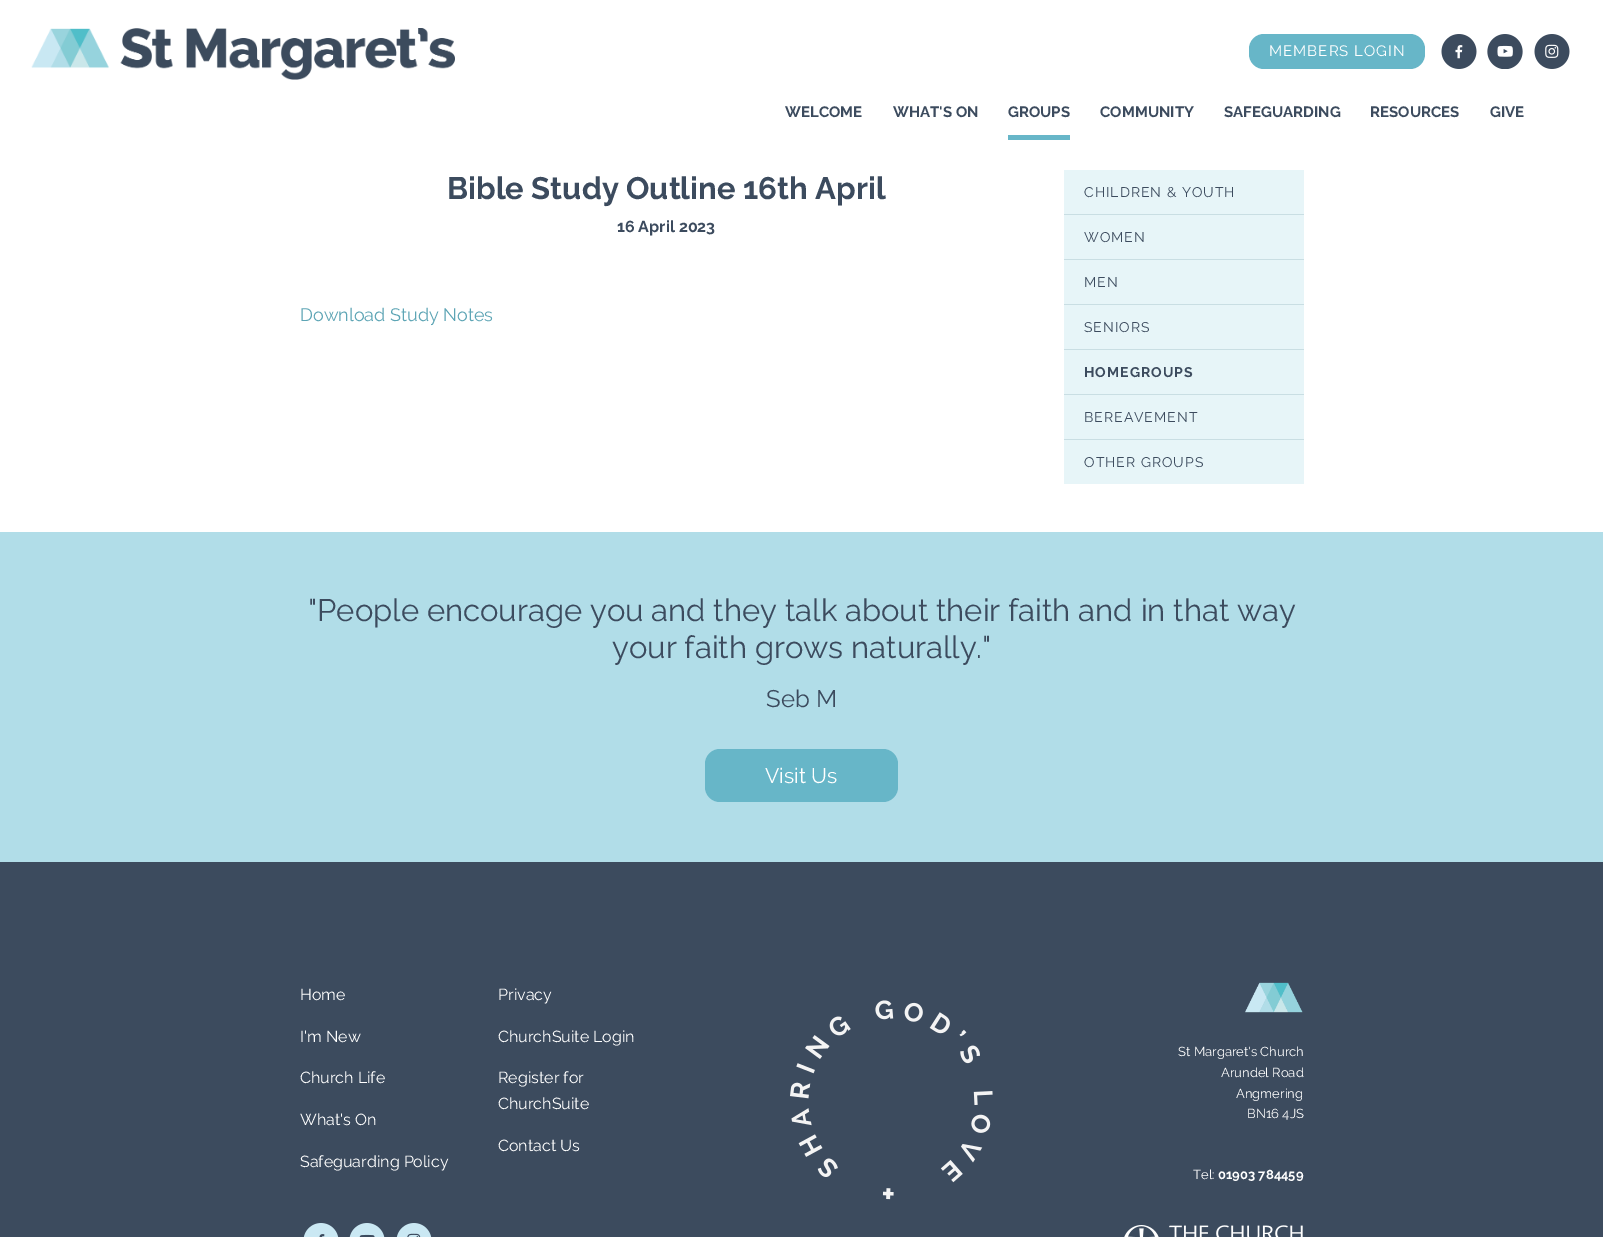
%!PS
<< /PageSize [1603 1237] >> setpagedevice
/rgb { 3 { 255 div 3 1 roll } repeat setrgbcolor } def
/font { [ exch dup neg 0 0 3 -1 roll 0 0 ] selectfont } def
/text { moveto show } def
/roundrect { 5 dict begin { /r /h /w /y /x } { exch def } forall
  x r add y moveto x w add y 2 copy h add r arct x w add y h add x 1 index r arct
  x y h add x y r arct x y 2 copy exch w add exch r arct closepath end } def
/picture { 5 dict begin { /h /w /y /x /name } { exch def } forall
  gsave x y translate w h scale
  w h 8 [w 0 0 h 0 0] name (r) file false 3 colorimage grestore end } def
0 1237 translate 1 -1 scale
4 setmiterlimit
255 255 255 rgb
0 0 1603 1237 rectfill
(img_01.rgb) 31 28 424 52 picture
103 182 200 rgb
1249 34 176 35 15 roundrect fill
(img_02.rgb) 1441 34 36 35 picture
(img_03.rgb) 1487 34 36 35 picture
(img_04.rgb) 1534 34 36 35 picture
1008 135 62 5 rectfill
231 245 248 rgb
1064 170 240 314 rectfill
201 222 227 rgb
1064 214 240 1 rectfill
1064 259 240 1 rectfill
1064 304 240 1 rectfill
1064 349 240 1 rectfill
1064 394 240 1 rectfill
1064 439 240 1 rectfill
177 221 232 rgb
0 532 1603 330 rectfill
103 182 200 rgb
705 749 193 53 15 roundrect fill
60 75 94 rgb
0 862 1603 375 rectfill
(img_05.rgb) 303 1223 36 14 picture
(img_06.rgb) 349 1223 36 14 picture
(img_07.rgb) 396 1223 36 14 picture
(img_08.rgb) 790 1000 203 200 picture
(img_09.rgb) 1245 982 58 31 picture
(img_10.rgb) 1124 1225 179 12 picture
/Raleway-Regular 15 font
255 255 255 rgb
1269 56 moveto 1 0 (MEMBERS LOGIN) ashow
/Raleway-Bold 15 font
60 75 94 rgb
(WELCOME) 785 117 text
(WHAT'S ON) 893 117 text
(GROUPS) 1008 117 text
(COMMUNITY) 1100 117 text
(SAFEGUARDING) 1224 117 text
(RESOURCES) 1370 117 text
(GIVE) 1490 117 text
/Raleway-Bold 31 font
(Bible Study Outline 16th April) 447 199 text
/Raleway-Bold 16 font
(16 April 2023) 617 232 text
/Raleway-Regular 18 font
93 165 181 rgb
(Download Study Notes) 300 321 text
/Raleway-Regular 14 font
60 75 94 rgb
1084 197 moveto 1 0 (CHILDREN & YOUTH) ashow
1084 242 moveto 1 0 (WOMEN) ashow
1084 287 moveto 1 0 (MEN) ashow
1084 332 moveto 1 0 (SENIORS) ashow
/Raleway-Bold 14 font
1084 377 moveto 1 0 (HOMEGROUPS) ashow
/Raleway-Regular 14 font
1084 422 moveto 1 0 (BEREAVEMENT) ashow
1084 467 moveto 1 0 (OTHER GROUPS) ashow
/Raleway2-Regular 31 font
("People encourage you and they talk about their faith and in that way) 308 621 text
(your faith grows naturally.") 612 658 text
/Raleway2-Regular 24 font
(Seb M) 766 707 text
/Raleway-Regular 21 font
255 255 255 rgb
(Visit Us) 765 783 text
/Raleway2-Regular 16 font
(Home) 300 1000 text
(I'm New) 300 1042 text
(Church Life) 300 1083 text
(What's On) 300 1125 text
(Safeguarding Policy) 300 1167 text
(Privacy) 498 1000 text
(ChurchSuite Login) 498 1042 text
(Register for) 498 1083 text
(ChurchSuite) 498 1109 text
(Contact Us) 498 1151 text
/Raleway-Regular 13 font
(St Margaret's Church) 1178 1056 text
(Arundel Road) 1221 1077 text
(Angmering) 1236 1098 text
(BN16 4JS) 1247 1118 text
(Tel:) 1193 1179 text
/Raleway-Bold 13 font
(01903 784459) 1218 1179 text
showpage
